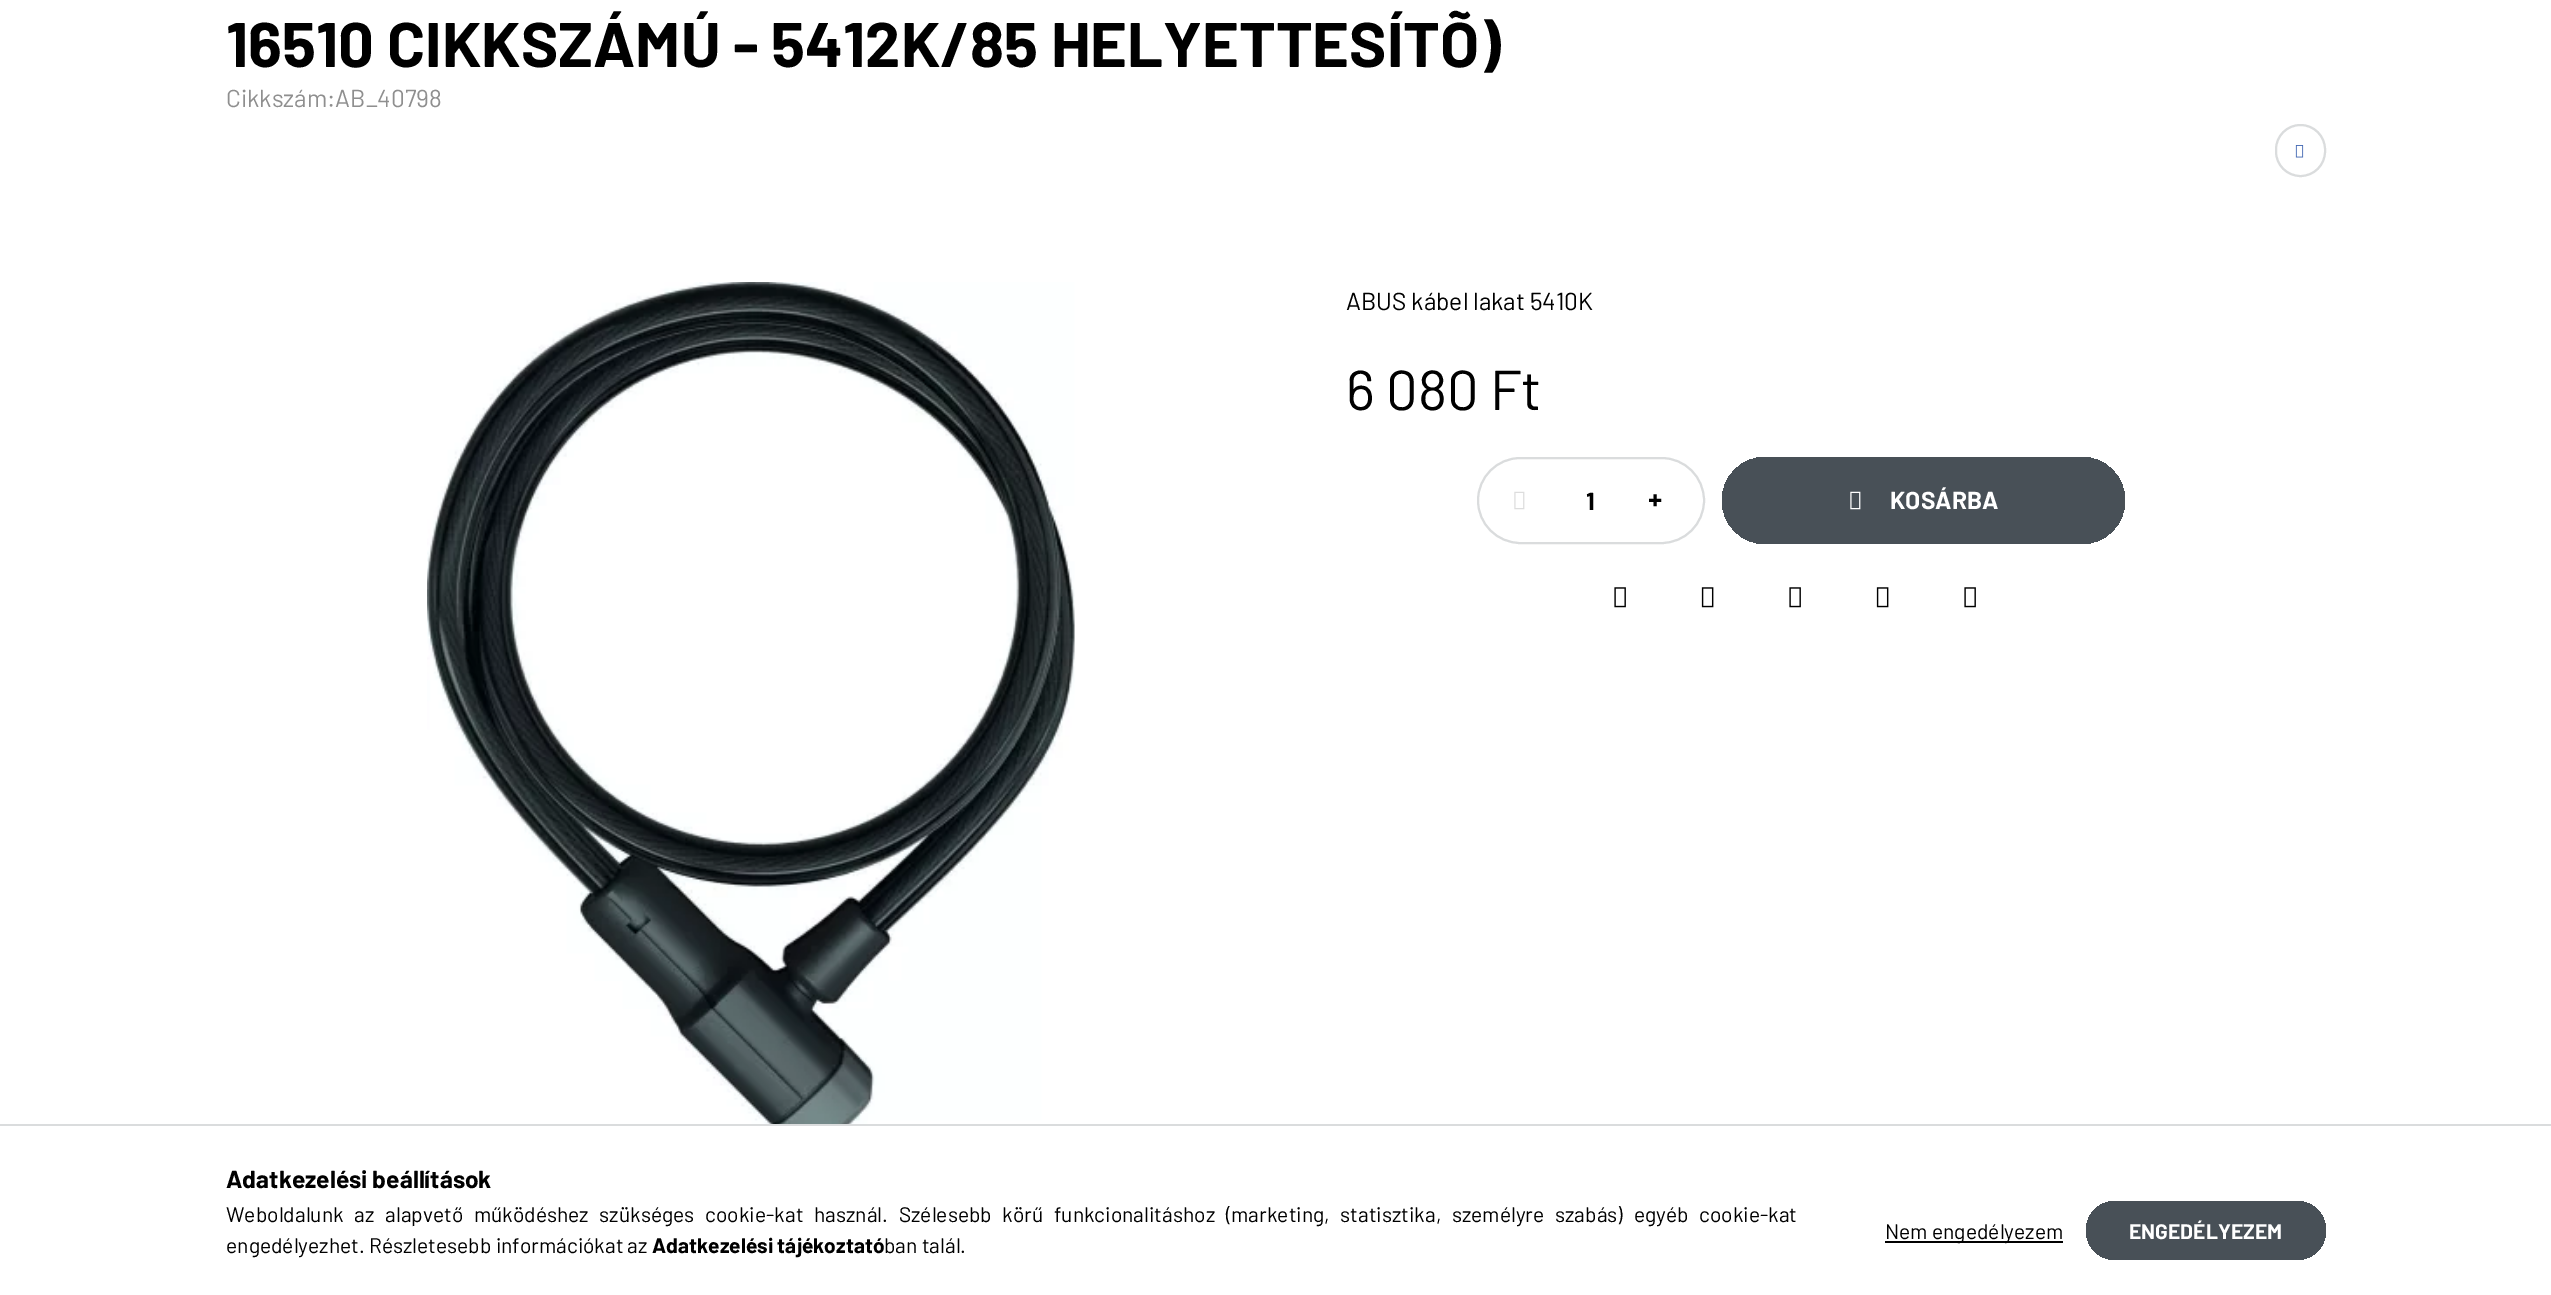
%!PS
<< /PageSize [2551 1295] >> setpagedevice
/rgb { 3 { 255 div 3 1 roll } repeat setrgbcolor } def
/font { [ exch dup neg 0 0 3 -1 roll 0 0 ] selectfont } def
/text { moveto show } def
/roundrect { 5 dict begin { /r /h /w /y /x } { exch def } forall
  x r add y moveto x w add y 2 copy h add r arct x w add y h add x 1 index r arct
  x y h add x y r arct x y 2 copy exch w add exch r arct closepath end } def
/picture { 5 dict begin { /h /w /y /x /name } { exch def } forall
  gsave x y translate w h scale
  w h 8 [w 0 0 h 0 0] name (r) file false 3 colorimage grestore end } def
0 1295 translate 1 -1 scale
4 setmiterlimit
255 255 255 rgb
0 0 2551 1295 rectfill
218 220 221 rgb
2 setlinewidth
2276 125 49 51 24.5 roundrect stroke
(img_01.rgb) 2295 145 9 13 picture
(img_02.rgb) 427 282 648 842 picture
1478 458 226 85 42.5 roundrect stroke
(img_03.rgb) 1514 491 11 19 picture
gsave 1722 457 403 87 43.5 roundrect clip newpath
<< /ShadingType 2 /ColorSpace /DeviceRGB /Coords [1722 501 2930 501] /Extend [true true] /Function << /FunctionType 3 /Domain [0 1] /Functions [<< /FunctionType 2 /Domain [0 1] /C0 [0.282 0.314 0.341] /C1 [0.282 0.314 0.341] /N 1 >> << /FunctionType 2 /Domain [0 1] /C0 [0.282 0.314 0.341] /C1 [1 0.58 0] /N 1 >> << /FunctionType 2 /Domain [0 1] /C0 [1 0.58 0] /C1 [1 0.58 0] /N 1 >>] /Bounds [0.33 0.67] /Encode [0 1 0 1 0 1] >> >> shfill grestore
(img_04.rgb) 1850 491 11 19 picture
(img_05.rgb) 1614 587 12 21 picture
(img_06.rgb) 1701 587 13 21 picture
(img_05.rgb) 1789 587 12 21 picture
(img_06.rgb) 1876 587 13 21 picture
(img_05.rgb) 1964 587 12 21 picture
0 1124 2551 2 rectfill
0 0 0 rgb
1885 1241 178 2 rectfill
gsave 2086 1201 240 59 29.5 roundrect clip newpath
<< /ShadingType 2 /ColorSpace /DeviceRGB /Coords [2086 1230 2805 1230] /Extend [true true] /Function << /FunctionType 3 /Domain [0 1] /Functions [<< /FunctionType 2 /Domain [0 1] /C0 [0.282 0.314 0.341] /C1 [0.282 0.314 0.341] /N 1 >> << /FunctionType 2 /Domain [0 1] /C0 [0.282 0.314 0.341] /C1 [1 0.58 0] /N 1 >> << /FunctionType 2 /Domain [0 1] /C0 [1 0.58 0] /C1 [1 0.58 0] /N 1 >>] /Bounds [0.33 0.67] /Encode [0 1 0 1 0 1] >> >> shfill grestore
/Barlow-Bold 63 font
(16510 CIKKSZÁMÚ - 5412K/85 HELYETTESÍTÕ\)) 226 67 text
/Barlow-Regular 24.5 font
143 143 143 rgb
(Cikkszám:AB_40798) 226 107 text
0 0 0 rgb
(ABUS kábel lakat 5410K) 1346 310 text
/Barlow-Regular 56 font
(6 080 Ft) 1346 410 text
/Barlow-Bold 24.5 font
(1) 1586 510 text
/NotoSans-Black 24.5 font
(+) 1648 509 text
/Barlow-Bold 24.5 font
255 255 255 rgb
(KOSÁRBA) 1890 509 text
0 0 0 rgb
(Adatkezelési beállítások) 226 1188 text
/Barlow-Regular 21 font
226 1222 moveto 6.5 0 32 (Weboldalunk az alapvető működéshez szükséges cookie-kat használ. Szélesebb körű funkcionalitáshoz \(marketing, statisztika, személyre szabás\) egyéb cookie-kat) widthshow
(engedélyezhet. Részletesebb információkat az) 226 1253 text
/Barlow-Bold 21 font
(Adatkezelési tájékoztató) 652 1253 text
/Barlow-Regular 21 font
(ban talál.) 884 1253 text
(Nem engedélyezem) 1885 1239 text
/Barlow-Bold 21 font
255 255 255 rgb
(ENGEDÉLYEZEM) 2129 1239 text
showpage
